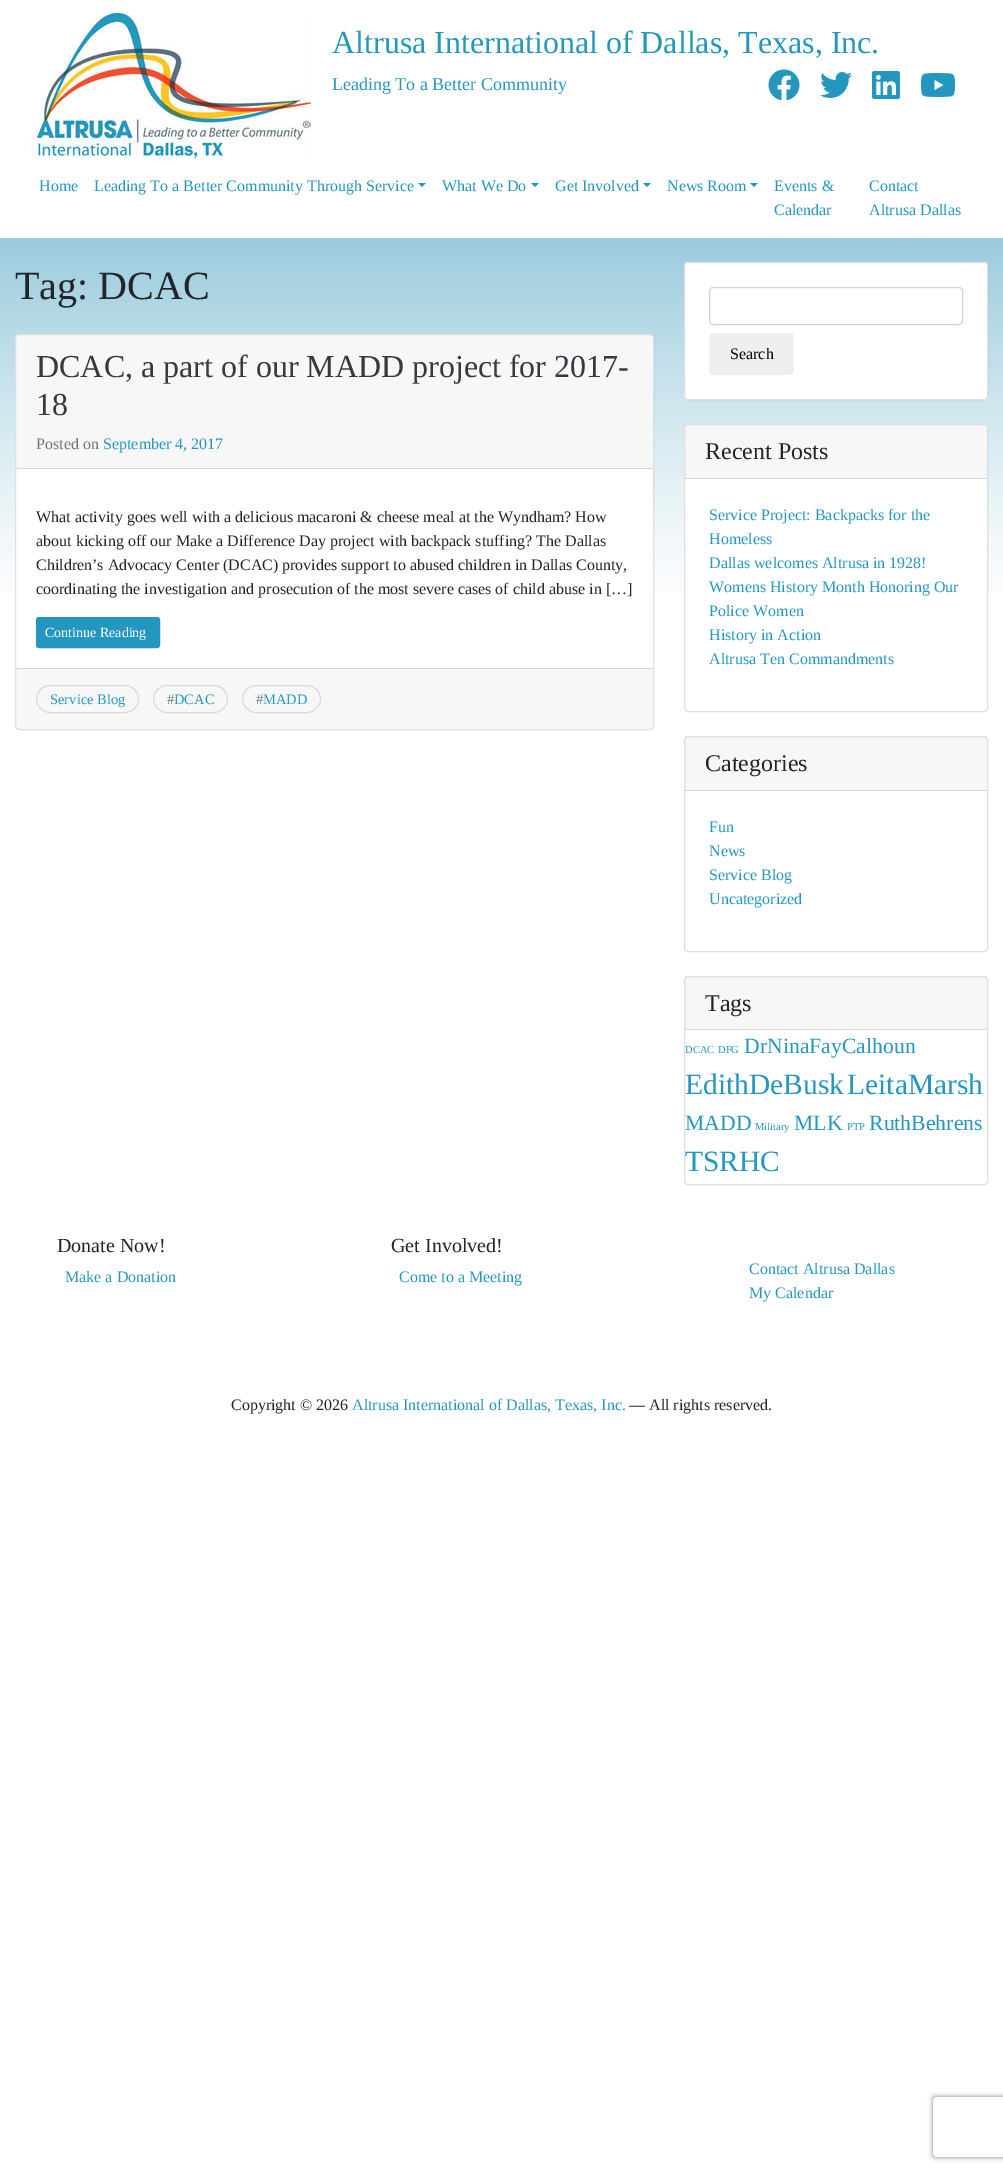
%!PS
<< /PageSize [1003 2171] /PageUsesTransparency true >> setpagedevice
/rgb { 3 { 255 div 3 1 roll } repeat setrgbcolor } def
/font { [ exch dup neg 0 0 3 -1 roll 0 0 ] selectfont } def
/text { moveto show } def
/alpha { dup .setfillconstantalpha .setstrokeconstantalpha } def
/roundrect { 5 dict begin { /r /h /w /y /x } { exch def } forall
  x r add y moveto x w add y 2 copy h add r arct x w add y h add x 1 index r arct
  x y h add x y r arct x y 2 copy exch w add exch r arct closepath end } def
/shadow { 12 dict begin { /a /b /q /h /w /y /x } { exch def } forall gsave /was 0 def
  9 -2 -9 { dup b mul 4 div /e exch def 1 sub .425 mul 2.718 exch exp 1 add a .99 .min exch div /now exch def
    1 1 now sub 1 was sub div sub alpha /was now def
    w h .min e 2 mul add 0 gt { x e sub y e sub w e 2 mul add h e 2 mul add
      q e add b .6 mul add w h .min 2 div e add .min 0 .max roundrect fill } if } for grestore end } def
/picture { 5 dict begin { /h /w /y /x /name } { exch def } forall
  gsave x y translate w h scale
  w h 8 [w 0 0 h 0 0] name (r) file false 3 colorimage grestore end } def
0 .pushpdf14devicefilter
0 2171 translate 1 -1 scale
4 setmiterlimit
255 255 255 rgb
0 0 1003 2171 rectfill
(img_01.rgb) 0 238 1003 354 picture
(img_02.rgb) 31 13 280 148 picture
(img_03.rgb) 768 69 32 32 picture
(img_04.rgb) 820 72 32 26 picture
(img_05.rgb) 872 71 28 28 picture
(img_06.rgb) 920 73 36 24 picture
35 151 192 rgb
418 183 moveto 8 0 rlineto -4 4 rlineto closepath fill
531 183 moveto 8 0 rlineto -4 4 rlineto closepath fill
643 183 moveto 8 0 rlineto -4 4 rlineto closepath fill
750 183 moveto 8 0 rlineto -4 4 rlineto closepath fill
255 255 255 rgb
15 334 639 396 4 roundrect fill
0.12 alpha
0 0 0 rgb
15.5 334.5 638 395 3.5 roundrect stroke
0.03 alpha
16 335 637 133 rectfill
1 alpha
216 216 216 rgb
16 468 637 1 rectfill
35 151 192 rgb
36.5 617.5 123 30 2.5 roundrect gsave fill grestore
stroke
0.03 alpha
0 0 0 rgb
16 669 637 60 rectfill
1 alpha
216 216 216 rgb
16 668 637 1 rectfill
217 218 219 rgb
36.5 685.5 102 27 13.5 roundrect stroke
153.5 685.5 74 27 13.5 roundrect stroke
242.5 685.5 78 27 13.5 roundrect stroke
255 255 255 rgb
684 262 304 138 4 roundrect fill
0.12 alpha
0 0 0 rgb
684.5 262.5 303 137 3.5 roundrect stroke
1 alpha
206 212 218 rgb
709.5 287.5 253 37 3.5 roundrect stroke
239 239 239 rgb
709 333 85 42 4 roundrect fill
255 255 255 rgb
684 424 304 288 4 roundrect fill
0.12 alpha
0 0 0 rgb
684.5 424.5 303 287 3.5 roundrect stroke
0.03 alpha
685 425 302 53 rectfill
1 alpha
216 216 216 rgb
685 478 302 1 rectfill
223 223 223 rgb
684.5 736.5 303 215 3.5 roundrect stroke
0.03 alpha
0 0 0 rgb
685 737 302 53 rectfill
1 alpha
216 216 216 rgb
685 790 302 1 rectfill
223 223 223 rgb
684.5 976.5 303 208 3.5 roundrect stroke
0.03 alpha
0 0 0 rgb
685 977 302 52 rectfill
1 alpha
216 216 216 rgb
685 1029 302 1 rectfill
gsave
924 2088 moveto 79 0 rlineto 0 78 rlineto -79 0 rlineto closepath 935 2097 moveto 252 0 rlineto 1 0 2 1 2 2 rcurveto 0 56 rlineto 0 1 -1 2 -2 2 rcurveto -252 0 rlineto -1 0 -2 -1 -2 -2 rcurveto 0 -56 rlineto 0 -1 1 -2 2 -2 rcurveto closepath eoclip newpath
128 128 128 rgb
933 2097 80 60 2 2.5 1 shadow
grestore
/LiberationSerif-Regular 32 font
35 151 192 rgb
(Altrusa International of Dallas, Texas, Inc.) 332 53 text
/LiberationSerif-Regular 18 font
(Leading To a Better Community) 332 90 text
/LiberationSerif-Regular 16 font
(Home) 39 191 text
(Leading To a Better Community Through Service) 94 191 text
(What We Do) 442 191 text
(Get Involved) 555 191 text
(News Room) 667 191 text
(Events &) 774 191 text
(Calendar) 774 215 text
(Contact) 869 191 text
(Altrusa Dallas) 869 215 text
/LiberationSerif-Regular 40 font
33 37 41 rgb
(Tag: DCAC) 15 299 text
/LiberationSerif-Regular 32 font
52 58 64 rgb
(DCAC, a part of our MADD project for 2017-) 36 377 text
(18) 36 415 text
/LiberationSerif-Regular 16 font
108 117 125 rgb
(Posted on) 36 449 text
35 151 192 rgb
(September 4, 2017) 103 449 text
33 37 41 rgb
(What activity goes well with a delicious macaroni & cheese meal at the Wyndham? How) 36 522 text
(about kicking off our Make a Difference Day project with backpack stuffing? The Dallas) 36 546 text
(Children’s Advocacy Center \(DCAC\) provides support to abused children in Dallas County,) 36 570 text
(coordinating the investigation and prosecution of the most severe cases of child abuse in […]) 36 594 text
/LiberationSerif-Regular 14 font
255 255 255 rgb
(Continue Reading) 45 637 text
/LiberationSerif-Regular 14.5 font
35 151 192 rgb
(Service Blog) 50 704 text
108 117 125 rgb
(#) 167 704 text
35 151 192 rgb
(DCAC) 174 704 text
108 117 125 rgb
(#) 256 704 text
35 151 192 rgb
(MADD) 263 704 text
/LiberationSerif-Regular 16 font
0 0 0 rgb
(Search) 730 359 text
/LiberationSerif-Regular 24 font
33 37 41 rgb
(Recent Posts) 705 459 text
/LiberationSerif-Regular 16 font
35 151 192 rgb
(Service Project: Backpacks for the) 709 520 text
(Homeless) 709 544 text
(Dallas welcomes Altrusa in 1928!) 709 568 text
(Womens History Month Honoring Our) 709 592 text
(Police Women) 709 616 text
(History in Action) 709 640 text
(Altrusa Ten Commandments) 709 664 text
/LiberationSerif-Regular 24 font
33 37 41 rgb
(Categories) 705 771 text
/LiberationSerif-Regular 16 font
35 151 192 rgb
(Fun) 709 832 text
(News) 709 856 text
(Service Blog) 709 880 text
(Uncategorized) 709 904 text
/LiberationSerif-Regular 24 font
33 37 41 rgb
(Tags) 705 1011 text
/LiberationSerif-Regular 10.5 font
35 151 192 rgb
(DCAC) 685 1053 text
(DFG) 718 1053 text
/LiberationSerif-Regular 21.75 font
(DrNinaFayCalhoun) 744 1053 text
/LiberationSerif-Regular 29.5 font
(EdithDeBusk) 685 1094 text
(LeitaMarsh) 847 1094 text
/LiberationSerif-Regular 21.75 font
(MADD) 685 1130 text
/LiberationSerif-Regular 10.5 font
(Military) 755 1130 text
/LiberationSerif-Regular 21.75 font
(MLK) 794 1130 text
/LiberationSerif-Regular 10.5 font
(PTP) 847 1130 text
/LiberationSerif-Regular 21.75 font
(RuthBehrens) 869 1130 text
/LiberationSerif-Regular 29.5 font
(TSRHC) 685 1171 text
/LiberationSerif-Regular 20 font
33 37 41 rgb
(Donate Now!) 57 1252 text
/LiberationSerif-Regular 16 font
35 151 192 rgb
(Make a Donation) 65 1282 text
/LiberationSerif-Regular 20 font
33 37 41 rgb
(Get Involved!) 391 1252 text
/LiberationSerif-Regular 16 font
35 151 192 rgb
(Come to a Meeting) 399 1282 text
(Contact Altrusa Dallas) 749 1274 text
(My Calendar) 749 1298 text
33 37 41 rgb
(Copyright © 2026) 231 1410 text
35 151 192 rgb
(Altrusa International of Dallas, Texas, Inc.) 352 1410 text
33 37 41 rgb
(— All rights reserved.) 629 1410 text
.poppdf14devicefilter showpage
